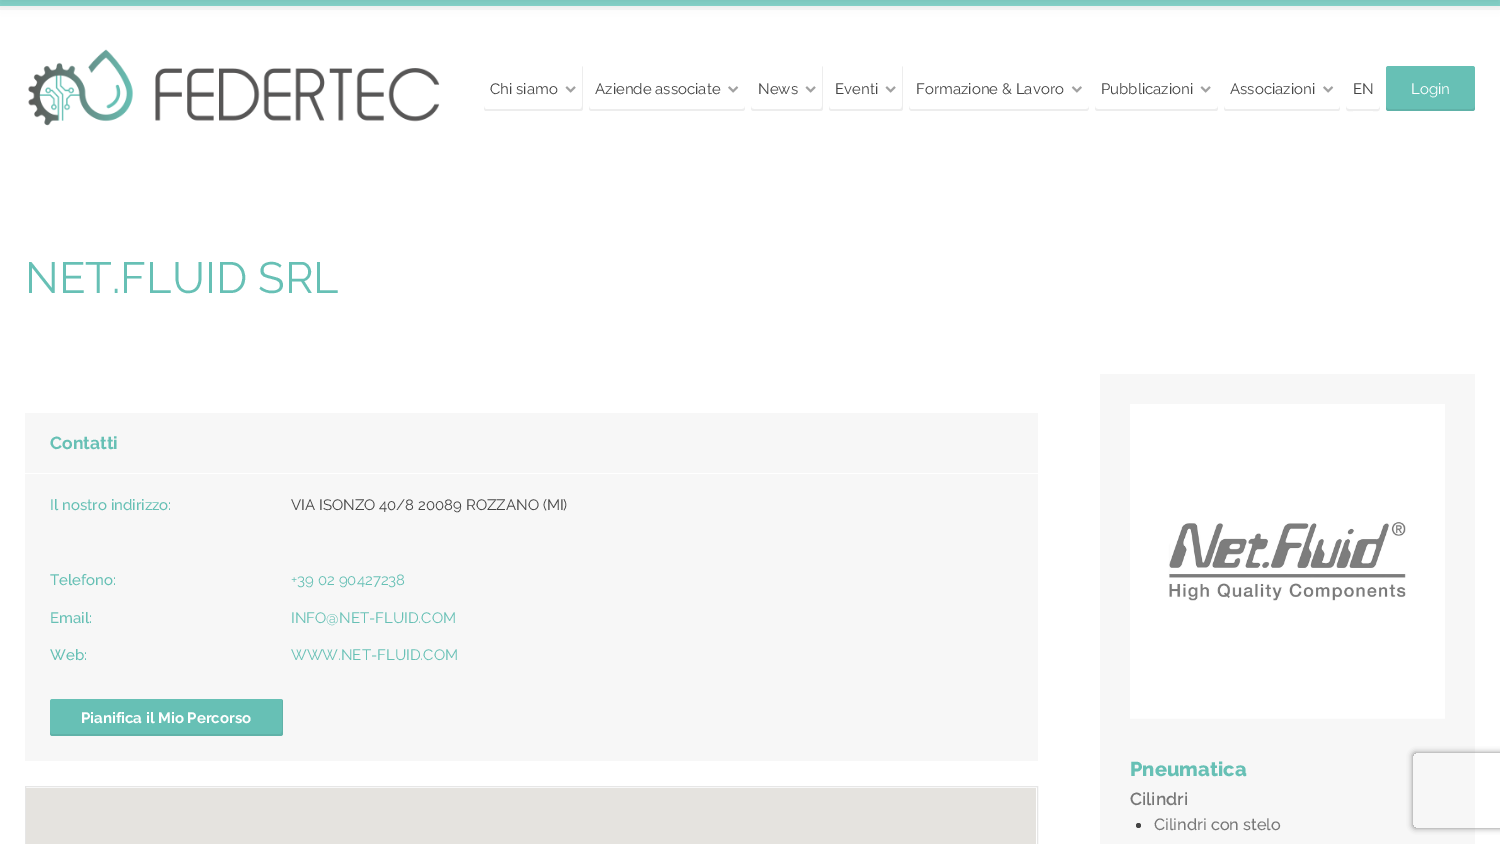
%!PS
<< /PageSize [1500 844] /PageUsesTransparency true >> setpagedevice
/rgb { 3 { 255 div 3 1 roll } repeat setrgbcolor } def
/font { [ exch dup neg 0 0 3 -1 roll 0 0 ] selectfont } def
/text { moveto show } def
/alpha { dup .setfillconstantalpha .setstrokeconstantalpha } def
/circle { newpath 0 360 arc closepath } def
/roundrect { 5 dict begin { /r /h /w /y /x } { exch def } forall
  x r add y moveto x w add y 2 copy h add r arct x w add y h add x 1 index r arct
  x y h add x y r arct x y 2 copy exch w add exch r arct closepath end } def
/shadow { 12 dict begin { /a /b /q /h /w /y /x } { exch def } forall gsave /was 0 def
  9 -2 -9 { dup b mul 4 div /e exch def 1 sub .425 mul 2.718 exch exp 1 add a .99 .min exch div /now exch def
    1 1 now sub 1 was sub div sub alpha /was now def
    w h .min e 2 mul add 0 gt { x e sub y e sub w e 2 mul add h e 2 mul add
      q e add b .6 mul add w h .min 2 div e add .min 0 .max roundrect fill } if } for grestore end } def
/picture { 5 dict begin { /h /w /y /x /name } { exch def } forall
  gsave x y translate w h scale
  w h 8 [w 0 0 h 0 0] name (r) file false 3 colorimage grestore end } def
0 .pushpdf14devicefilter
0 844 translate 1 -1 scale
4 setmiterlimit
255 255 255 rgb
0 0 1500 844 rectfill
247 247 247 rgb
0 6 1500 4 rectfill
137 214 205 rgb
0 0 1500 6 rectfill
0 0 0 rgb
0 -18 1500 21 0 6 0.1 shadow
(img_01.rgb) 28 49 412 77 picture
237 237 237 rgb
484 106 moveto 0 2 rlineto 0 2 1 3 2 3 rcurveto 94 0 rlineto 2 0 3 -1 3 -3 rcurveto 0 -40 rlineto 0 0 0 -1 -1 -2 rcurveto 0 40 rlineto 0 2 -1 3 -2 3 rcurveto -94 0 rlineto -1 0 -2 -1 -2 -3 rcurveto closepath fill
(img_02.rgb) 565 86 11 7 picture
589 106 moveto 0 2 rlineto 0 2 1 3 3 3 rcurveto 150 0 rlineto 2 0 3 -1 3 -3 rcurveto 0 -2 rlineto 0 2 -1 3 -3 3 rcurveto -151 0 rlineto -1 0 -2 -1 -2 -3 rcurveto closepath fill
(img_03.rgb) 728 86 11 7 picture
751 106 moveto 0 2 rlineto 0 2 1 3 3 3 rcurveto 66 0 rlineto 2 0 3 -1 3 -3 rcurveto 0 -40 rlineto 0 0 0 -1 -1 -2 rcurveto 0 40 rlineto 0 2 -1 3 -2 3 rcurveto -66 0 rlineto -2 0 -3 -1 -3 -3 rcurveto closepath fill
(img_02.rgb) 805 86 11 7 picture
829 106 moveto 0 2 rlineto 0 2 1 3 3 3 rcurveto 68 0 rlineto 2 0 3 -1 3 -3 rcurveto 0 -40 rlineto 0 0 0 -1 -1 -2 rcurveto 0 40 rlineto 0 2 -1 3 -2 3 rcurveto -69 0 rlineto -1 0 -2 -1 -2 -3 rcurveto closepath fill
(img_02.rgb) 885 86 11 7 picture
909 106 moveto 0 2 0 5 3 5 rcurveto 175 0 rlineto 2 -1 2 -3 2 -5 rcurveto 0 2 -1 3 -3 3 rcurveto -175 0 rlineto -1 0 -2 -1 -2 -3 rcurveto closepath fill
(img_04.rgb) 1071 86 11 7 picture
1095 106 moveto 0 2 rlineto 0 2 1 3 3 3 rcurveto 118 0 rlineto 1 0 2 -1 2 -3 rcurveto 0 -2 rlineto 0 2 -2 3 -3 3 rcurveto -117 0 rlineto -2 0 -3 -1 -3 -3 rcurveto closepath fill
(img_02.rgb) 1200 86 11 7 picture
1224 106 moveto 0 2 rlineto 0 2 1 3 2 3 rcurveto 112 0 rlineto 1 0 2 -1 2 -3 rcurveto 0 -2 rlineto 0 2 -1 3 -2 3 rcurveto -112 0 rlineto -1 0 -2 -1 -2 -3 rcurveto closepath fill
(img_03.rgb) 1323 86 11 7 picture
1346 106 moveto 0 6 1.5 5 7.5 5 rcurveto 19 0 rlineto 6 0 7.5 1 7.5 -5 rcurveto 0 2 -1 3 -2 3 rcurveto -29 0 rlineto -2 0 -3 -1 -3 -3 rcurveto closepath fill
103 192 181 rgb
1386 66 89 45 2.5 roundrect fill
0.07 alpha
0 0 0 rgb
1386 106 moveto 0 2 rlineto 0 2 1 3 2 3 rcurveto 84 0 rlineto 2 0 3 -1 3 -3 rcurveto 0 -2 rlineto 0 2 -1 3 -3 3 rcurveto -83 0 rlineto -2 0 -3 -1 -3 -3 rcurveto closepath fill
1 alpha
247 247 247 rgb
25 413 1013 60 rectfill
25 474 1013 287 rectfill
103 192 181 rgb
50 699 233 37 2.5 roundrect fill
0.07 alpha
0 0 0 rgb
50 731 moveto 0 3 rlineto 0 1 1 2 2 2 rcurveto 228 0 rlineto 2 0 3 -1 3 -2 rcurveto 0 -32 rlineto 0 -1 0 -2 -1 -3 rcurveto 0 32 rlineto 0 2 -1 3 -2 3 rcurveto -228 0 rlineto -1 0 -2 -1 -2 -3 rcurveto closepath fill
1 alpha
230 230 230 rgb
25.5 786.5 1012 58 rectstroke
229 227 223 rgb
26 788 1010 56 rectfill
247 247 247 rgb
1100 374 375 470 rectfill
(img_05.rgb) 1130 404 315 315 picture
68 68 68 rgb
1138.5 825.5 2.5 circle fill
gsave
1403 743 moveto 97 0 rlineto 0 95 rlineto -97 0 rlineto closepath 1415.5 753 moveto 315 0 rlineto 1.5 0 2.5 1 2.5 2.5 rcurveto 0 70 rlineto 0 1.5 -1 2.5 -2.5 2.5 rcurveto -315 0 rlineto -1.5 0 -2.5 -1 -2.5 -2.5 rcurveto 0 -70 rlineto 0 -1.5 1 -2.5 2.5 -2.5 rcurveto closepath eoclip newpath
128 128 128 rgb
1413 753 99 75 2.5 3 1 shadow
grestore
/Raleway-Regular 15 font
(Chi siamo) 490 94 text
(Aziende associate) 595 94 text
(News) 758 94 text
(Eventi) 835 94 text
(Formazione & Lavoro) 916 94 text
(Pubblicazioni) 1101 94 text
(Associazioni) 1230 94 text
(EN) 1353 94 text
255 255 255 rgb
(Login) 1411 94 text
/Raleway-Regular 43.75 font
103 192 181 rgb
(NET.FLUID SRL) 25 293 text
/Raleway-Bold 17.5 font
(Contatti) 50 449 text
/Raleway-Medium 15 font
(Il nostro indirizzo:) 50 510 text
/Raleway-Regular 15 font
68 68 68 rgb
(VIA ISONZO 40/8 20089 ROZZANO \(MI\)) 291 510 text
/Raleway-Medium 15 font
103 192 181 rgb
(Telefono:) 50 585 text
/Raleway-Regular 15 font
(+39 02 90427238) 291 585 text
/Raleway-Medium 15 font
(Email:) 50 623 text
/Raleway-Regular 15 font
(INFO@NET-FLUID.COM) 291 623 text
/Raleway-Medium 15 font
(Web:) 50 660 text
/Raleway-Regular 15 font
(WWW.NET-FLUID.COM) 291 660 text
/Raleway-Bold 15 font
255 255 255 rgb
(Pianifica il Mio Percorso) 81 723 text
/Raleway-ExtraBold 20 font
103 192 181 rgb
(Pneumatica) 1130 776 text
/Raleway-SemiBold 17.5 font
119 119 119 rgb
(Cilindri) 1130 805 text
/Raleway-Medium 16.25 font
(Cilindri con stelo) 1154 830 text
.poppdf14devicefilter showpage
